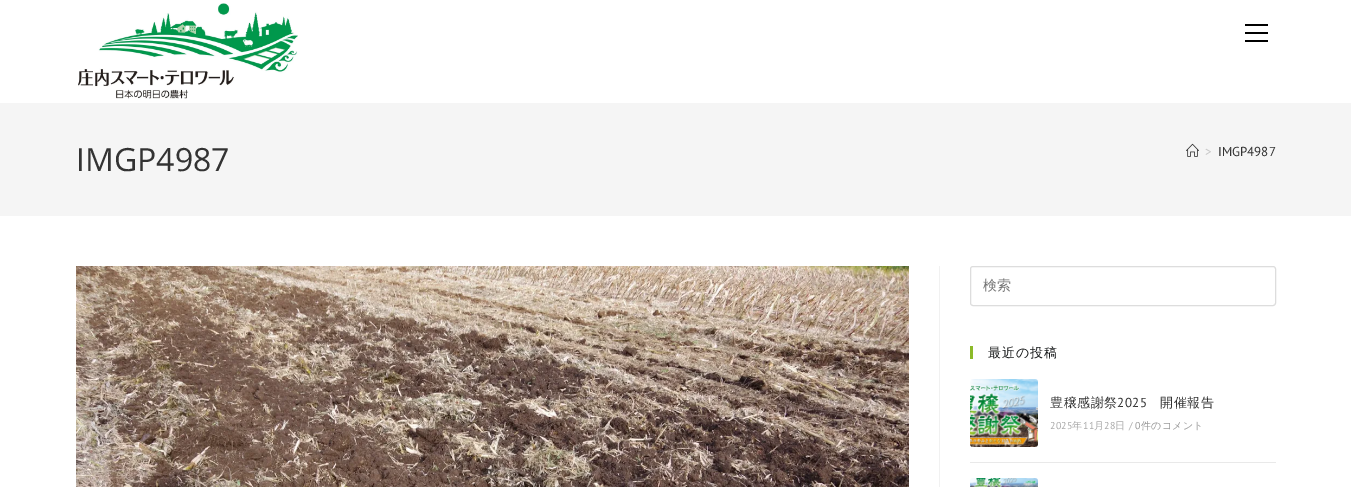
%!PS
<< /PageSize [1351 487] >> setpagedevice
/rgb { 3 { 255 div 3 1 roll } repeat setrgbcolor } def
/font { [ exch dup neg 0 0 3 -1 roll 0 0 ] selectfont } def
/text { moveto show } def
/roundrect { 5 dict begin { /r /h /w /y /x } { exch def } forall
  x r add y moveto x w add y 2 copy h add r arct x w add y h add x 1 index r arct
  x y h add x y r arct x y 2 copy exch w add exch r arct closepath end } def
/picture { 5 dict begin { /h /w /y /x /name } { exch def } forall
  gsave x y translate w h scale
  w h 8 [w 0 0 h 0 0] name (r) file false 3 colorimage grestore end } def
0 487 translate 1 -1 scale
4 setmiterlimit
255 255 255 rgb
0 0 1351 487 rectfill
(img_01.rgb) 78 3 220 96 picture
0 0 0 rgb
1245 32 23 2 rectfill
1245 24 23 2 rectfill
1245 40 23 2 rectfill
245 245 245 rgb
0 103 1351 113 rectfill
(img_02.rgb) 1186 143 13 14 picture
241 241 241 rgb
939 266 1 221 rectfill
(img_03.rgb) 76 266 833 221 picture
221 221 221 rgb
970.5 266.5 305 39 2.5 roundrect stroke
140 186 41 rgb
970 346 3 13 rectfill
(img_04.rgb) 970 379 68 68 picture
233 233 233 rgb
970 462 306 1 rectfill
(img_05.rgb) 970 478 68 9 picture
/OpenSans-Regular 32 font
51 51 51 rgb
(IMGP4987) 76 171 text
/PTSans-Regular 13 font
198 198 198 rgb
(>) 1205 156 text
51 51 51 rgb
(IMGP4987) 1218 156 text
/WenQuanYiZenHei-Medium 14 font
117 117 117 rgb
(検索) 983 290 text
/WenQuanYiZenHei-Medium 13 font
22 24 25 rgb
988 357 moveto 1 0 (最近の投稿) ashow
51 51 51 rgb
1050 407 moveto 0.5 0 (豊穣感謝祭) ashow
/PTSans-Regular 13 font
1117 407 moveto 0.5 0 (2025) ashow
/WenQuanYiZenHei-Medium 13 font
1160 407 moveto 0.5 0 (開催報告) ashow
/PTSans-Regular 10 font
170 170 170 rgb
1050 429 moveto 0.25 0 (2025) ashow
/WenQuanYiZenHei-Medium 10 font
1072 429 moveto 0.25 0 (年) ashow
/PTSans-Regular 10 font
1083 429 moveto 0.25 0 (11) ashow
/WenQuanYiZenHei-Medium 10 font
1094 429 moveto 0.25 0 (月) ashow
/PTSans-Regular 10 font
1104 429 moveto 0.25 0 (28) ashow
/WenQuanYiZenHei-Medium 10 font
1115 429 moveto 0.25 0 (日) ashow
/PTSans-Regular 10 font
1129 429 moveto 0.25 0 (/) ashow
153 153 153 rgb
1135 429 moveto 0.25 0 (0) ashow
/WenQuanYiZenHei-Medium 10 font
1141 429 moveto 0.25 0 (件のコメント) ashow
showpage
